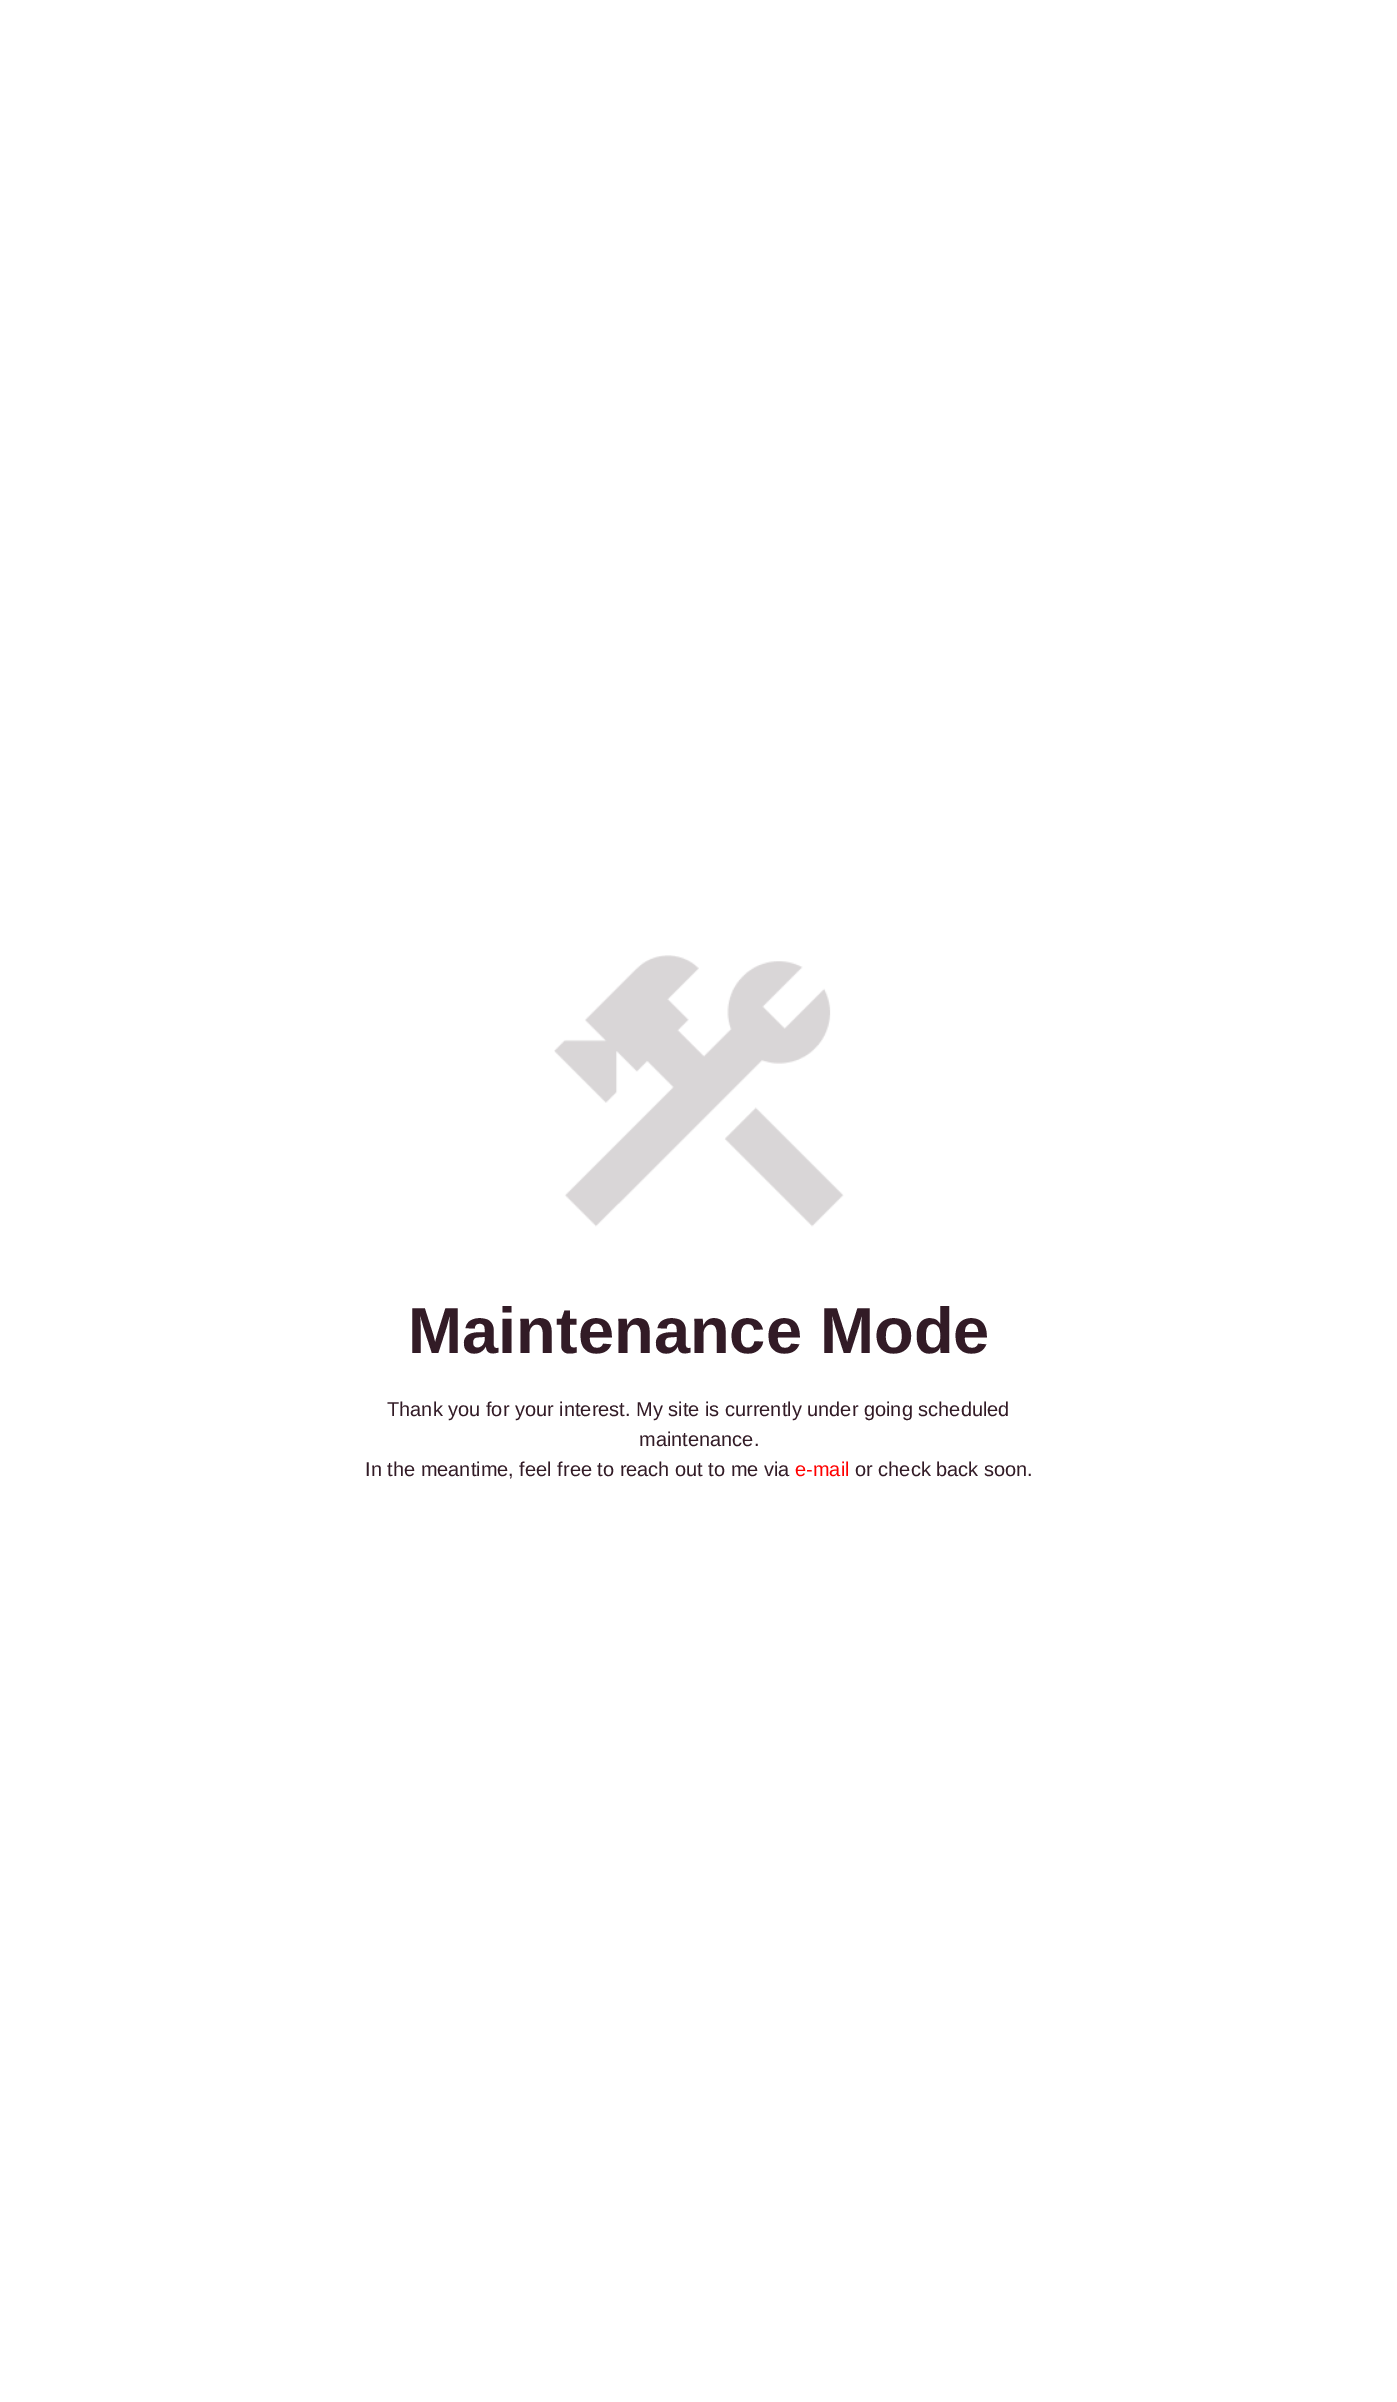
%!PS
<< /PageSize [1397 2402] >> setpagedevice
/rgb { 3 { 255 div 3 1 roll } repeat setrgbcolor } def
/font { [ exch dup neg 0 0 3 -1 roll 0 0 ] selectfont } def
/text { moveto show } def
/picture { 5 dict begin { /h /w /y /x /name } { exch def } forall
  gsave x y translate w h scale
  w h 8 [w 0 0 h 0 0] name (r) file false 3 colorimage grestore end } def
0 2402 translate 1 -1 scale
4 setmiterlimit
255 255 255 rgb
0 0 1397 2402 rectfill
(img_01.rgb) 554 955 290 272 picture
/LiberationSans-Bold 65 font
50 27 38 rgb
(Maintenance Mode) 408 1353 text
/LiberationSans-Regular 20 font
(Thank you for your interest. My site is currently under going scheduled) 387 1416 text
(maintenance.) 639 1446 text
(In the meantime, feel free to reach out to me via) 365 1476 text
255 0 0 rgb
(e-mail) 795 1476 text
50 27 38 rgb
(or check back soon.) 855 1476 text
showpage
